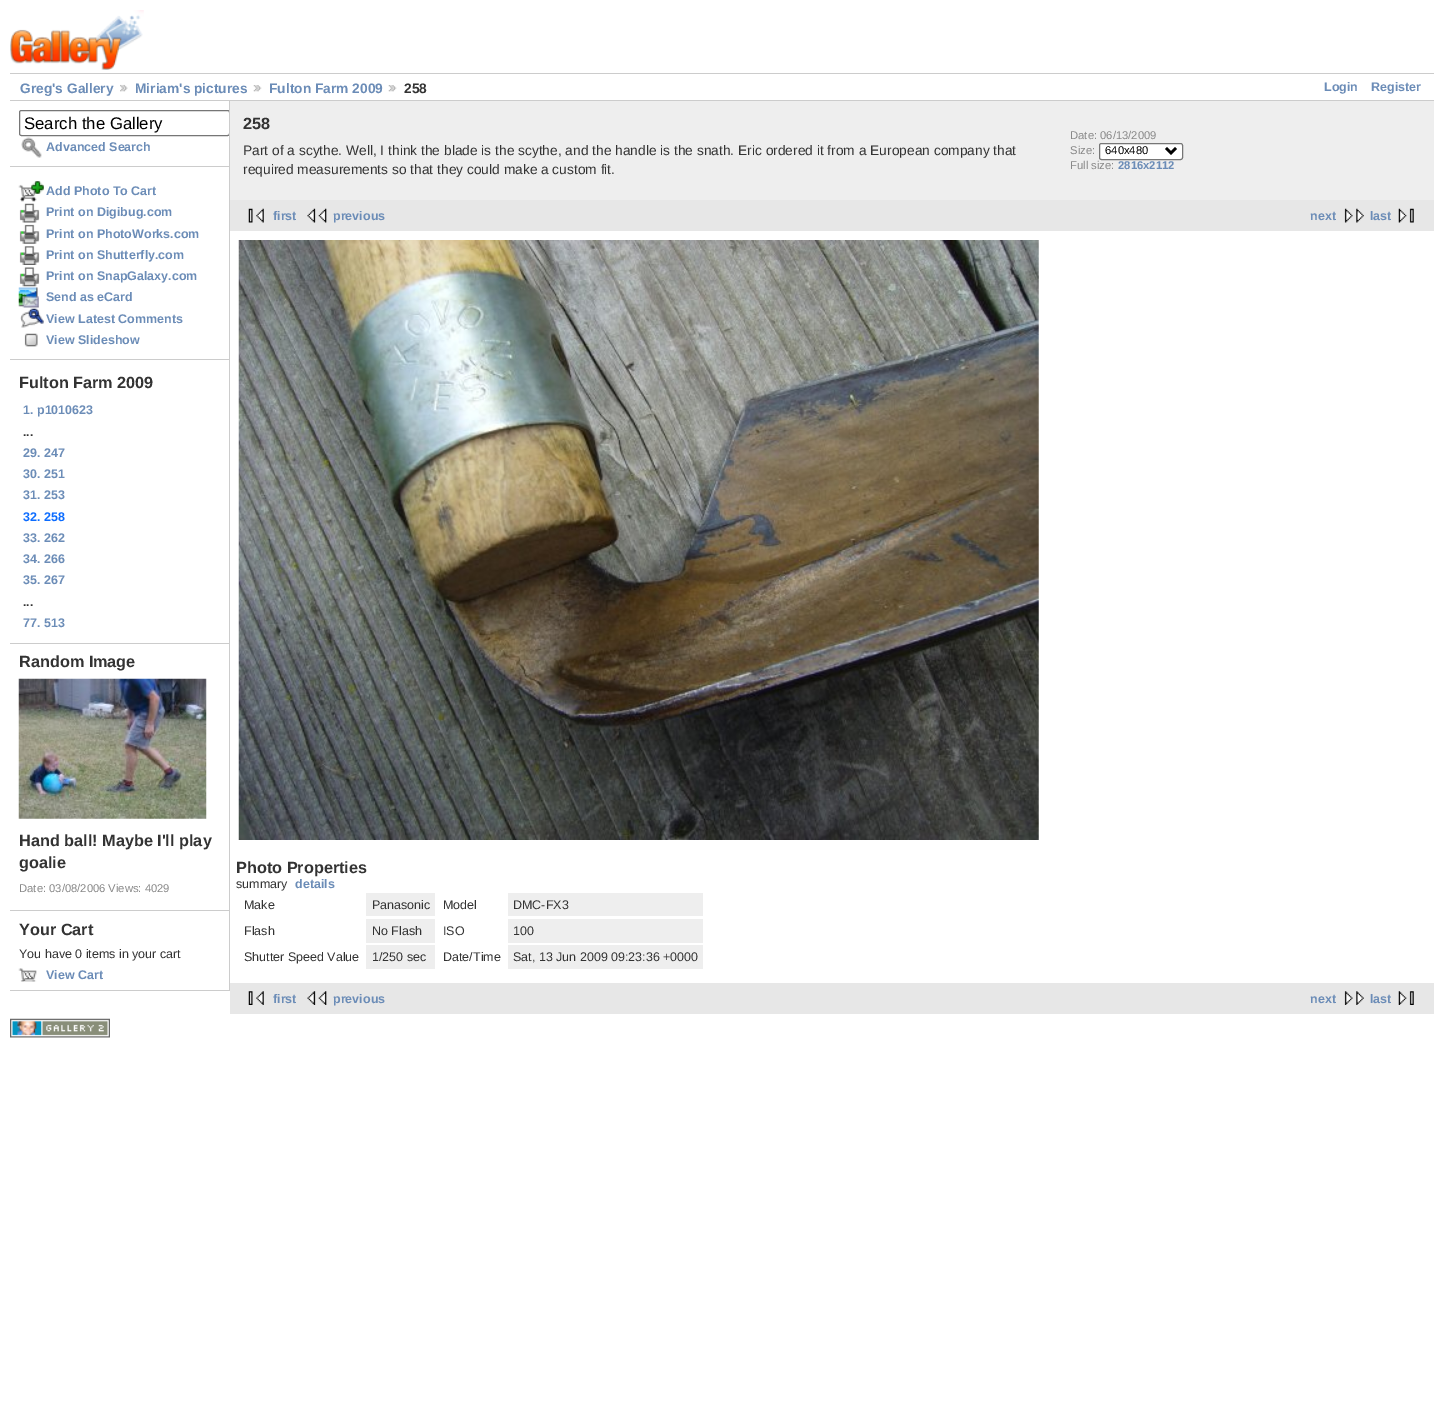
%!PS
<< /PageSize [1443 1418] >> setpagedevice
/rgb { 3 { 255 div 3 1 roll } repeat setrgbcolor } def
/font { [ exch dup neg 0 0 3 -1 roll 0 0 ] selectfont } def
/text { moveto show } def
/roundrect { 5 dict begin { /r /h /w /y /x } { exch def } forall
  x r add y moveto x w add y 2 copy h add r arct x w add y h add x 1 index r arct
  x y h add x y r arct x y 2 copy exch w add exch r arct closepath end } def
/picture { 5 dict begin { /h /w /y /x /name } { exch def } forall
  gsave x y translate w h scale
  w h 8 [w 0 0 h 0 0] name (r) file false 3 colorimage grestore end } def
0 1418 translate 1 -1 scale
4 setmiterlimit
255 255 255 rgb
0 0 1443 1418 rectfill
(img_01.rgb) 10 10 134 60 picture
204 204 204 rgb
10 73 1424 1 rectfill
10 100 1424 1 rectfill
(img_02.rgb) 120 84 8 8 picture
(img_03.rgb) 253 85 9 7 picture
(img_03.rgb) 388 85 9 7 picture
229 101 1 890 rectfill
10 166 219 1 rectfill
gsave
10 101 219 890 rectclip
118 118 118 rgb
19.5 110.5 210 25 2 roundrect stroke
grestore
(img_04.rgb) 21 137 21 21 picture
10 359 219 1 rectfill
(img_05.rgb) 18 181 26 21 picture
(img_06.rgb) 19 203 21 20 picture
(img_07.rgb) 19 224 21 20 picture
(img_08.rgb) 19 246 21 19 picture
(img_09.rgb) 19 267 21 20 picture
(img_10.rgb) 18 287 21 21 picture
(img_11.rgb) 20 308 24 20 picture
(img_12.rgb) 24 333 14 14 picture
10 643 219 1 rectfill
10 910 219 1 rectfill
(img_13.rgb) 18 678 189 141 picture
10 990 219 1 rectfill
(img_14.rgb) 18 968 19 14 picture
238 238 238 rgb
230 101 1204 99 rectfill
255 255 255 rgb
1099.5 143.5 83 16 2 roundrect gsave fill grestore
118 118 118 rgb
stroke
0 0 0 rgb
2.5 setlinewidth
1166 148 moveto 5 5 rlineto 5 -5 rlineto stroke
231 231 231 rgb
230 200 1204 31 rectfill
(img_15.rgb) 248 208 16 15 picture
(img_16.rgb) 307 208 20 15 picture
(img_17.rgb) 1344 208 20 15 picture
(img_18.rgb) 1398 208 16 15 picture
(img_19.rgb) 238 240 801 600 picture
238 238 238 rgb
366 893 69 23 rectfill
508 893 195 23 rectfill
366 919 69 24 rectfill
508 919 195 24 rectfill
366 945 69 24 rectfill
508 945 195 24 rectfill
231 231 231 rgb
230 983 1204 31 rectfill
(img_20.rgb) 248 991 16 14 picture
(img_21.rgb) 307 991 20 14 picture
(img_22.rgb) 1344 991 20 14 picture
(img_23.rgb) 1398 991 16 14 picture
(img_24.rgb) 10 1018 100 20 picture
/LiberationSans-Bold 13.75 font
107 140 183 rgb
(Greg's Gallery) 20 93 text
(Miriam's pictures) 135 93 text
(Fulton Farm 2009) 269 93 text
51 51 51 rgb
(258) 404 93 text
/LiberationSans-Bold 12.5 font
107 140 183 rgb
(Login) 1324 91 text
(Register) 1371 91 text
/LiberationSans-Regular 16.75 font
0 0 0 rgb
(Search the Gallery) 24 129 text
/LiberationSans-Bold 12.5 font
107 140 183 rgb
(Advanced Search) 46 151 text
(Add Photo To Cart) 46 195 text
(Print on Digibug.com) 46 216 text
(Print on PhotoWorks.com) 46 238 text
(Print on Shutterfly.com) 46 259 text
(Print on SnapGalaxy.com) 46 280 text
(Send as eCard) 46 301 text
(View Latest Comments) 46 323 text
(View Slideshow) 46 344 text
/LiberationSans-Bold 16.25 font
51 51 51 rgb
(Fulton Farm 2009) 19 388 text
/LiberationSans-Bold 12.5 font
107 140 183 rgb
(1. p1010623) 23 414 text
51 51 51 rgb
(...) 23 436 text
107 140 183 rgb
(29. 247) 23 457 text
(30. 251) 23 478 text
(31. 253) 23 499 text
11 108 255 rgb
(32. 258) 23 521 text
107 140 183 rgb
(33. 262) 23 542 text
(34. 266) 23 563 text
(35. 267) 23 584 text
51 51 51 rgb
(...) 23 606 text
107 140 183 rgb
(77. 513) 23 627 text
/LiberationSans-Bold 16.25 font
51 51 51 rgb
(Random Image) 19 667 text
(Hand ball! Maybe I'll play) 19 846 text
(goalie) 19 868 text
/LiberationSans-Regular 11.25 font
136 136 136 rgb
(Date: 03/08/2006 Views: 4029) 19 892 text
/LiberationSans-Bold 16.25 font
51 51 51 rgb
(Your Cart) 19 935 text
/LiberationSans-Regular 12.5 font
(You have 0 items in your cart) 19 958 text
/LiberationSans-Bold 12.5 font
107 140 183 rgb
(View Cart) 46 979 text
/LiberationSans-Bold 16.25 font
51 51 51 rgb
(258) 243 129 text
/LiberationSans-Regular 13.75 font
(Part of a scythe. Well, I think the blade is the scythe, and the handle is the snath. Eric ordered it from a European company that) 243 155 text
(required measurements so that they could make a custom fit.) 243 174 text
/LiberationSans-Regular 11.25 font
136 136 136 rgb
(Date: 06/13/2009) 1070 139 text
(Size:) 1070 154 text
0 0 0 rgb
(640x480) 1105 154 text
136 136 136 rgb
(Full size:) 1070 169 text
/LiberationSans-Bold 11.25 font
107 140 183 rgb
(2816x2112) 1118 169 text
/LiberationSans-Bold 12.5 font
(first) 273 220 text
(previous) 333 220 text
(next) 1310 220 text
(last) 1370 220 text
/LiberationSans-Bold 16.25 font
51 51 51 rgb
(Photo Properties) 236 873 text
/LiberationSans-Regular 12.5 font
(summary) 236 888 text
/LiberationSans-Bold 12.5 font
107 140 183 rgb
(details) 295 888 text
/LiberationSans-Regular 12.5 font
51 51 51 rgb
(Make) 244 909 text
(Panasonic) 372 909 text
(Model) 443 909 text
(DMC-FX3) 513 909 text
(Flash) 244 935 text
(No Flash) 372 935 text
(ISO) 443 935 text
(100) 513 935 text
(Shutter Speed Value) 244 961 text
(1/250 sec) 372 961 text
(Date/Time) 443 961 text
(Sat, 13 Jun 2009 09:23:36 +0000) 513 961 text
/LiberationSans-Bold 12.5 font
107 140 183 rgb
(first) 273 1003 text
(previous) 333 1003 text
(next) 1310 1003 text
(last) 1370 1003 text
showpage
